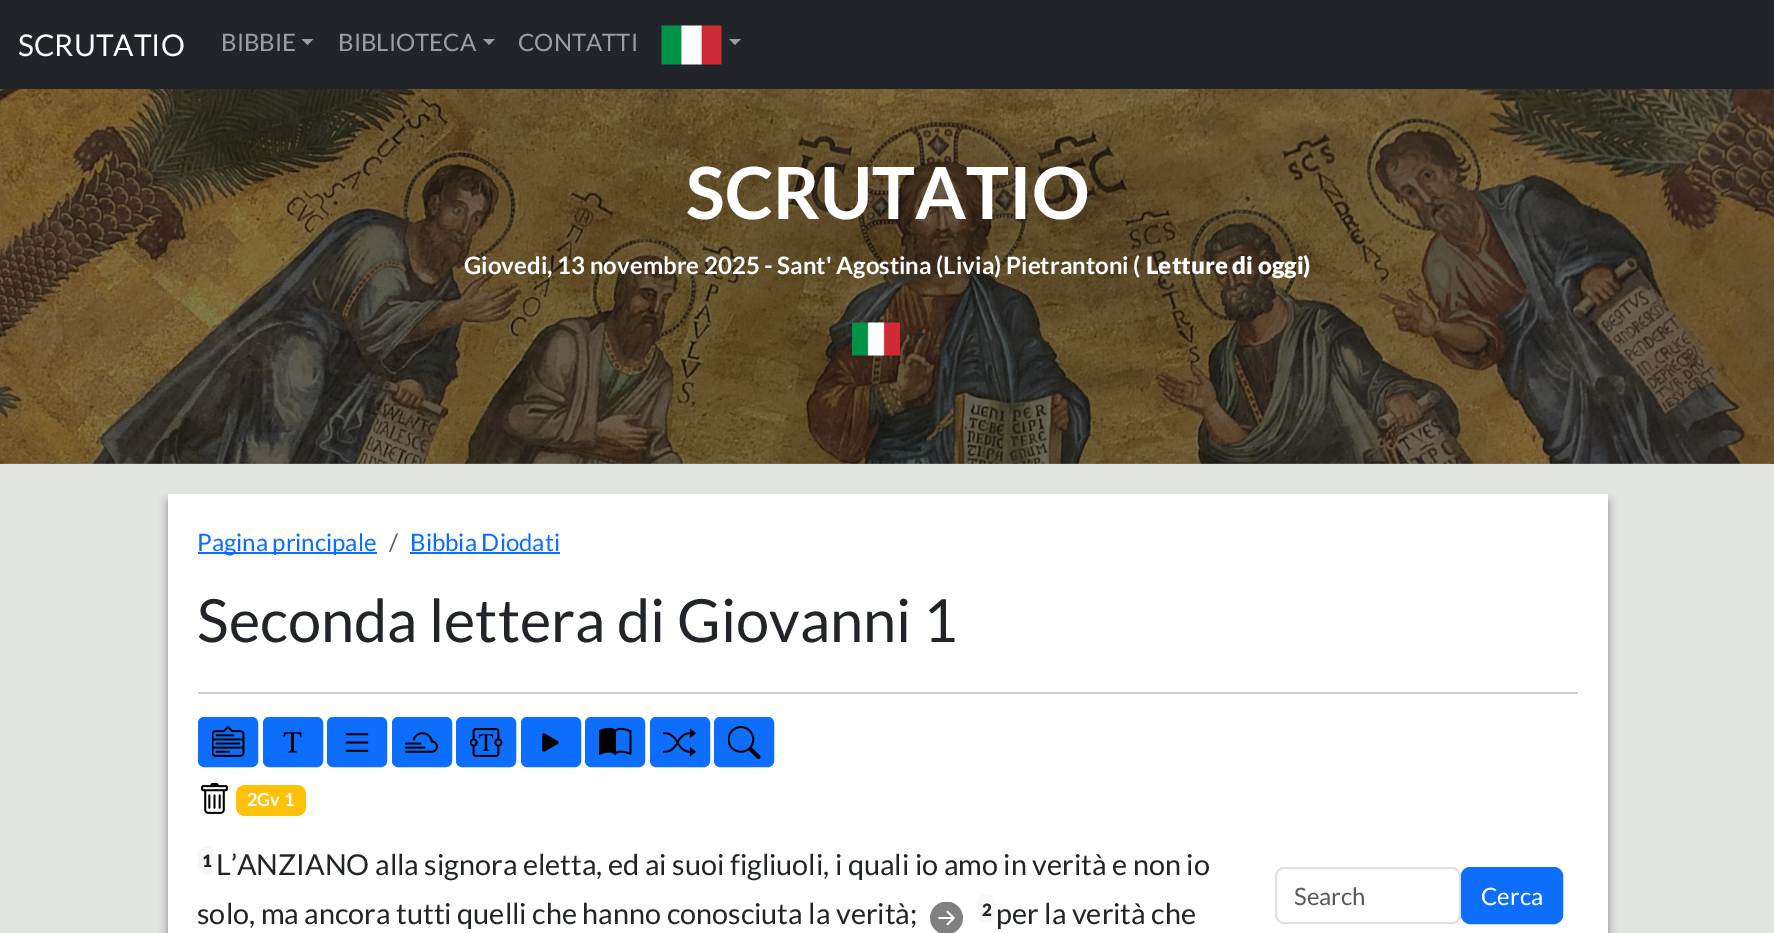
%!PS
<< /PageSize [1774 933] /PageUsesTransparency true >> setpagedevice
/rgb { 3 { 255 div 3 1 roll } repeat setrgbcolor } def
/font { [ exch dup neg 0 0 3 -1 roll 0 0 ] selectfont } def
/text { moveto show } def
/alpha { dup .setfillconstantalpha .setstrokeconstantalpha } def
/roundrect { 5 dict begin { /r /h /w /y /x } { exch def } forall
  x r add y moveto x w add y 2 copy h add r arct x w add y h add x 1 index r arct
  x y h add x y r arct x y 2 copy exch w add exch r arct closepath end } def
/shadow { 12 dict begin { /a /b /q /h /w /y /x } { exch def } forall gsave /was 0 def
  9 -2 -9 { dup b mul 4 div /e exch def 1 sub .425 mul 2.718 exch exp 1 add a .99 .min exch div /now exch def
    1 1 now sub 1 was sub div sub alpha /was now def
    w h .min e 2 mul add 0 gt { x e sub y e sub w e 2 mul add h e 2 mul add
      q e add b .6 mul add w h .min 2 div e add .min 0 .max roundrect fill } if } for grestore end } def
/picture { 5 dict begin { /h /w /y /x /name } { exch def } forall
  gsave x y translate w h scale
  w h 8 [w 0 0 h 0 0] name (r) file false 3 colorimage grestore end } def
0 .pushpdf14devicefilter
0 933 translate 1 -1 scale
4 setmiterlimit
52 58 64 rgb
0 0 1774 933 rectfill
33 37 41 rgb
0 0 1774 89 rectfill
155 157 159 rgb
301.5 39 moveto 12 0 rlineto -6 6 rlineto closepath fill
483 39 moveto 12 0 rlineto -6 6 rlineto closepath fill
(img_01.rgb) 661 25 61 40 picture
729 39 moveto 12 0 rlineto -6 6 rlineto closepath fill
128 128 128 rgb
3 98 1769 369 0 1.5 1 shadow
(img_02.rgb) 0 89 1774 375 picture
(img_03.rgb) 852 322 48 34 picture
33 37 41 rgb
913.5 333 moveto 12 0 rlineto -6 6 rlineto closepath fill
226 228 225 rgb
0 464 1774 469 rectfill
0 0 0 rgb
168 503 1440 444 0 4.5 0.23 shadow
168 501 1440 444 0 4 0.19 shadow
255 255 255 rgb
168 494 1440 439 rectfill
13 110 253 rgb
198 552 179 2 rectfill
410 552 150 2 rectfill
200 201 202 rgb
198 692 1380 2 rectfill
13 110 253 rgb
199 718 58 48 5 roundrect gsave fill grestore
2 setlinewidth
stroke
(img_04.rgb) 212 726 33 31 picture
264 718 58 48 5 roundrect gsave fill grestore
stroke
(img_05.rgb) 283 732 19 21 picture
328 718 58 48 5 roundrect gsave fill grestore
stroke
(img_06.rgb) 345 733 24 19 picture
393 718 58 48 5 roundrect gsave fill grestore
stroke
(img_07.rgb) 405 732 33 21 picture
457 718 58 48 5 roundrect gsave fill grestore
stroke
(img_08.rgb) 470 728 33 29 picture
522 718 58 48 5 roundrect gsave fill grestore
stroke
(img_09.rgb) 542 733 17 19 picture
586 718 58 48 5 roundrect gsave fill grestore
stroke
(img_10.rgb) 599 727 33 28 picture
651 718 58 48 5 roundrect gsave fill grestore
stroke
(img_11.rgb) 663 728 33 29 picture
715 718 58 48 5 roundrect gsave fill grestore
stroke
(img_12.rgb) 728 726 33 33 picture
(img_13.rgb) 201 783 27 31 picture
255 193 7 rgb
236 785 70 31 9 roundrect fill
248 248 248 rgb
198 846 18 29 9 roundrect fill
(img_14.rgb) 930 902 33 31 picture
977 894 19 29 9.5 roundrect fill
222 226 230 rgb
1276 868 184 55 8 roundrect stroke
13 110 253 rgb
1462 868 100 55 8 roundrect gsave fill grestore
stroke
/Lato-Regular 30 font
255 255 255 rgb
(SCRUTATIO) 18 56 text
/Lato-Regular 24 font
155 157 159 rgb
(BIBBIE) 221 51 text
(BIBLIOTECA) 338 51 text
(CONTATTI) 518 51 text
/Lato-Bold 72 font
255 255 255 rgb
(SCRUTATIO) 686 219 text
/Lato-Bold 24 font
(Giovedi, 13 novembre 2025 - Sant' Agostina \(Livia\) Pietrantoni \() 464 274 text
/Lato-Black 24 font
(Letture di oggi\)) 1146 274 text
/Lato-Regular 24 font
13 110 253 rgb
(Pagina principale) 197 551 text
89 92 95 rgb
(/) 389 551 text
13 110 253 rgb
(Bibbia Diodati) 410 551 text
/Lato-Regular 59.6 font
33 37 41 rgb
(Seconda lettera di Giovanni 1) 197 642 text
/Lato-Bold 18 font
255 255 255 rgb
(2Gv 1) 247 806 text
/Lato-Black 17 font
33 37 41 rgb
(1) 202 867 text
/Lato-Regular 28.8 font
(L’ANZIANO alla signora eletta, ed ai suoi figliuoli, i quali io amo in verità e non io) 216 875 text
(solo, ma ancora tutti quelli che hanno conosciuta la verità;) 197 924 text
/Lato-Black 17 font
(2) 982 916 text
/Lato-Regular 28.8 font
(per la verità che) 996 924 text
/Lato-Regular 24 font
89 92 95 rgb
(Search) 1294 905 text
255 255 255 rgb
(Cerca) 1481 905 text
.poppdf14devicefilter showpage
